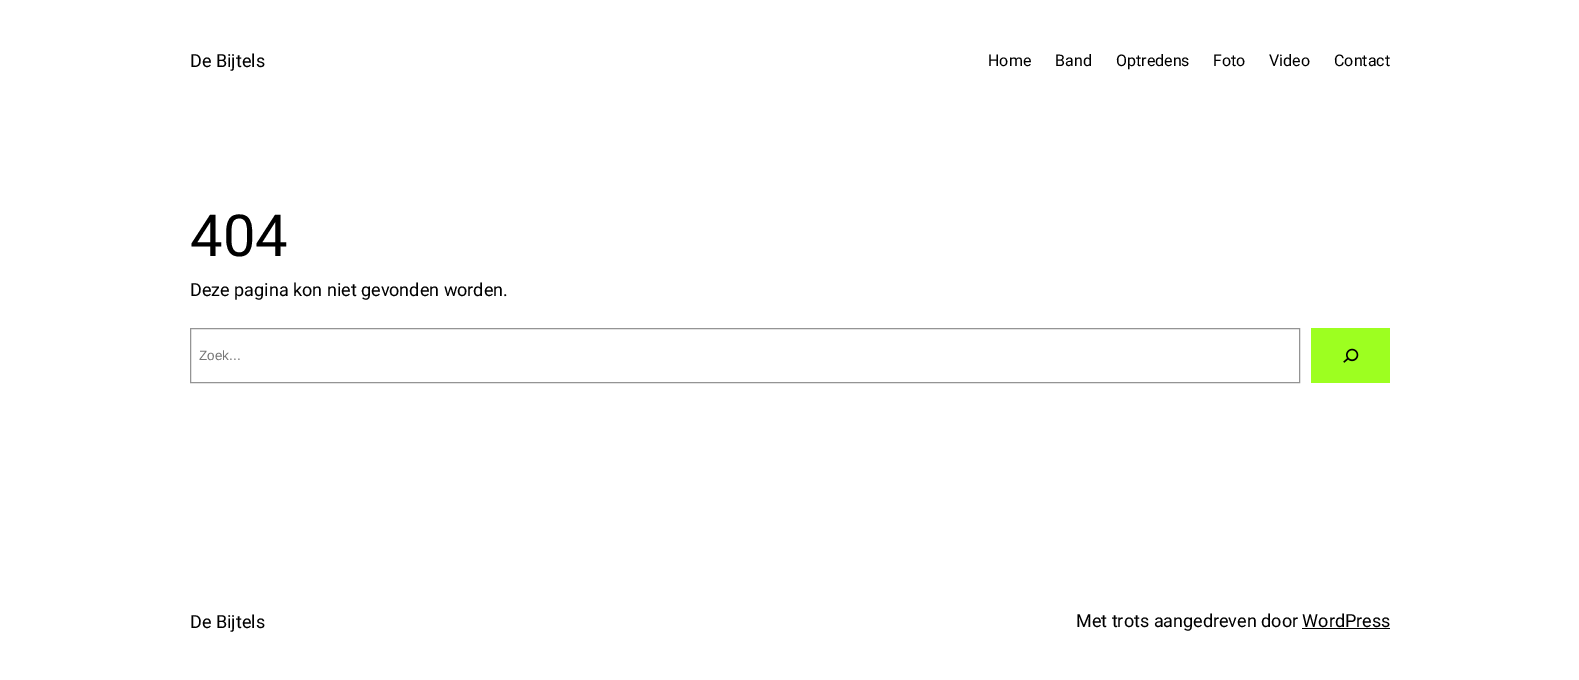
%!PS
<< /PageSize [1579 680] >> setpagedevice
/rgb { 3 { 255 div 3 1 roll } repeat setrgbcolor } def
/font { [ exch dup neg 0 0 3 -1 roll 0 0 ] selectfont } def
/text { moveto show } def
/picture { 5 dict begin { /h /w /y /x /name } { exch def } forall
  gsave x y translate w h scale
  w h 8 [w 0 0 h 0 0] name (r) file false 3 colorimage grestore end } def
0 680 translate 1 -1 scale
4 setmiterlimit
255 255 255 rgb
0 0 1579 680 rectfill
148 148 148 rgb
190.5 328.5 1109 54 rectstroke
157 255 32 rgb
1311 328 79 55 rectfill
(img_01.rgb) 1343 348 16 15 picture
0 0 0 rgb
1302 628 88 1 rectfill
/Roboto-Regular 18 font
(De Bijtels) 190 67 text
/Roboto-Regular 16 font
(Home) 988 66 text
(Band) 1055 66 text
(Optredens) 1116 66 text
(Foto) 1213 66 text
(Video) 1269 66 text
(Contact) 1334 66 text
/Roboto-Regular 58 font
(404) 190 256 text
/Roboto-Regular 18 font
(Deze pagina kon niet gevonden worden.) 190 296 text
/LiberationSans-Regular 13.5 font
117 117 117 rgb
(Zoek...) 199 360 text
/Roboto-Regular 18 font
0 0 0 rgb
(De Bijtels) 190 628 text
(Met trots aangedreven door WordPress) 1076 627 text
showpage
